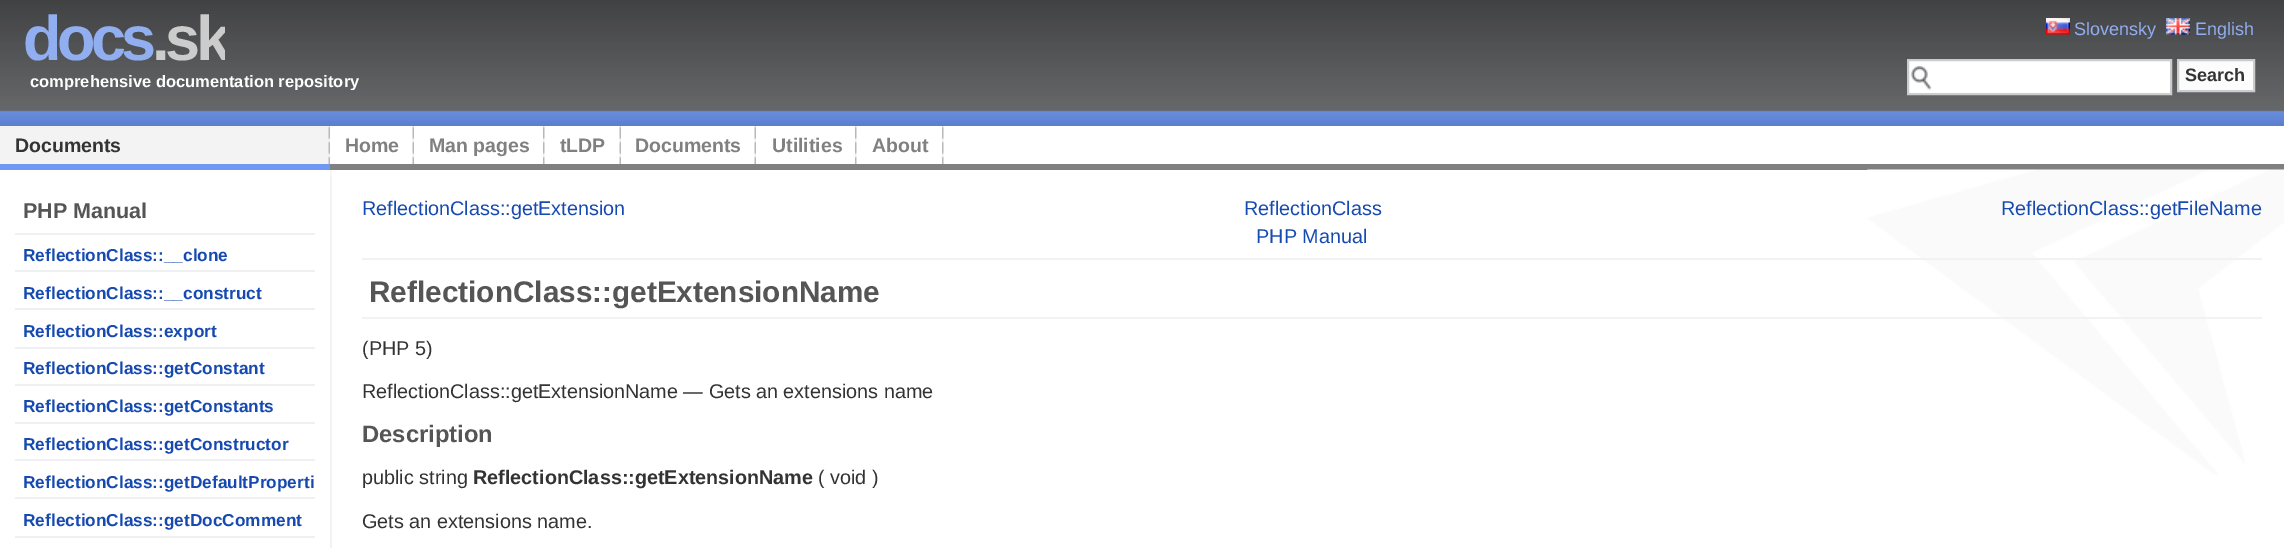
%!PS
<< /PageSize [2284 548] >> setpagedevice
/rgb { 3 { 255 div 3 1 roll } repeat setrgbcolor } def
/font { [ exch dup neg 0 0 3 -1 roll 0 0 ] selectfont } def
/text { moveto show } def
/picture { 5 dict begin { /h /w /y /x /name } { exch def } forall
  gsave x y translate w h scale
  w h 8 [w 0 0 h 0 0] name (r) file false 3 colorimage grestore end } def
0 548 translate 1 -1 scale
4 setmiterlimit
255 255 255 rgb
0 0 2284 548 rectfill
(img_01.rgb) 330 170 2 6 picture
(img_02.rgb) 0 0 2284 126 picture
(img_03.rgb) 2046 18 24 17 picture
(img_04.rgb) 2166 18 24 17 picture
1909 61 261 32 rectfill
(img_05.rgb) 1910 66 22 24 picture
204 204 204 rgb
2 setlinewidth
1908 60 263 34 rectstroke
252 252 252 rgb
2178 60 moveto 76 0 rlineto 0 31 rlineto -76 0 rlineto closepath gsave fill grestore
204 204 204 rgb
stroke
128 128 128 rgb
944 164 1340 6 rectfill
243 243 243 rgb
0 126 329 38 rectfill
(img_06.rgb) 328 126 2 38 picture
112 152 242 rgb
0 164 330 6 rectfill
(img_07.rgb) 412 126 2 38 picture
128 128 128 rgb
330 164 614 6 rectfill
(img_08.rgb) 543 126 2 38 picture
(img_07.rgb) 619 126 2 38 picture
(img_07.rgb) 754 126 2 38 picture
(img_08.rgb) 855 126 2 38 picture
(img_08.rgb) 942 126 2 38 picture
(img_09.rgb) 1867 169 417 306 picture
239 240 241 rgb
15 233 300 2 rectfill
15 270 300 2 rectfill
15 308 300 2 rectfill
15 347 300 2 rectfill
15 384 300 2 rectfill
15 422 300 2 rectfill
15 459 300 2 rectfill
15 497 300 2 rectfill
15 536 300 2 rectfill
242 242 242 rgb
330 176 2 372 rectfill
362 258 1900 2 rectfill
362 317 1900 2 rectfill
/LiberationSans-Bold 63 font
144 174 240 rgb
23 60 moveto -4.5 0 (docs) ashow
gsave
23 3 202 72 rectclip
204 204 204 rgb
152 60 moveto -4.5 0 (.sk) ashow
grestore
/LiberationSans-Regular 18 font
(Slovensky) 2074 35 text
(English) 2195 35 text
/LiberationSans-Bold 18 font
51 51 51 rgb
(Search) 2185 81 text
gsave
30 72 329 18 rectclip
/LiberationSans-Bold 16.5 font
255 255 255 rgb
(comprehensive documentation repository) 30 87 text
grestore
/LiberationSans-Bold 19.5 font
(Documents) 15 152 text
128 128 128 rgb
(Home) 345 152 text
(Man pages) 429 152 text
(tLDP) 560 152 text
(Documents) 635 152 text
(Utilities) 772 152 text
(About) 872 152 text
/LiberationSans-Bold 21.5 font
85 85 85 rgb
(PHP Manual) 23 218 text
/LiberationSans-Bold 17.25 font
22 74 177 rgb
(ReflectionClass::__clone) 23 261 text
(ReflectionClass::__construct) 23 299 text
(ReflectionClass::export) 23 337 text
(ReflectionClass::getConstant) 23 374 text
(ReflectionClass::getConstants) 23 412 text
(ReflectionClass::getConstructor) 23 450 text
(ReflectionClass::getDefaultProperti) 23 488 text
(ReflectionClass::getDocComment) 23 526 text
/LiberationSans-Regular 19.8 font
(ReflectionClass::getExtension) 362 215 text
(ReflectionClass) 1244 215 text
(ReflectionClass::getFileName) 2001 215 text
(PHP Manual) 1256 243 text
/LiberationSans-Bold 29.75 font
85 85 85 rgb
(ReflectionClass::getExtensionName) 369 302 text
/LiberationSans-Regular 19.8 font
51 51 51 rgb
(\(PHP 5\)) 362 355 text
(ReflectionClass::getExtensionName — Gets an extensions name) 362 398 text
/LiberationSans-Bold 23.75 font
85 85 85 rgb
(Description) 362 442 text
/LiberationSans-Regular 19.8 font
51 51 51 rgb
(public string) 362 484 text
/LiberationSans-Bold 19.8 font
(ReflectionClass::getExtensionName) 473 484 text
/LiberationSans-Regular 19.8 font
(\( void \)) 818 484 text
(Gets an extensions name.) 362 528 text
showpage
